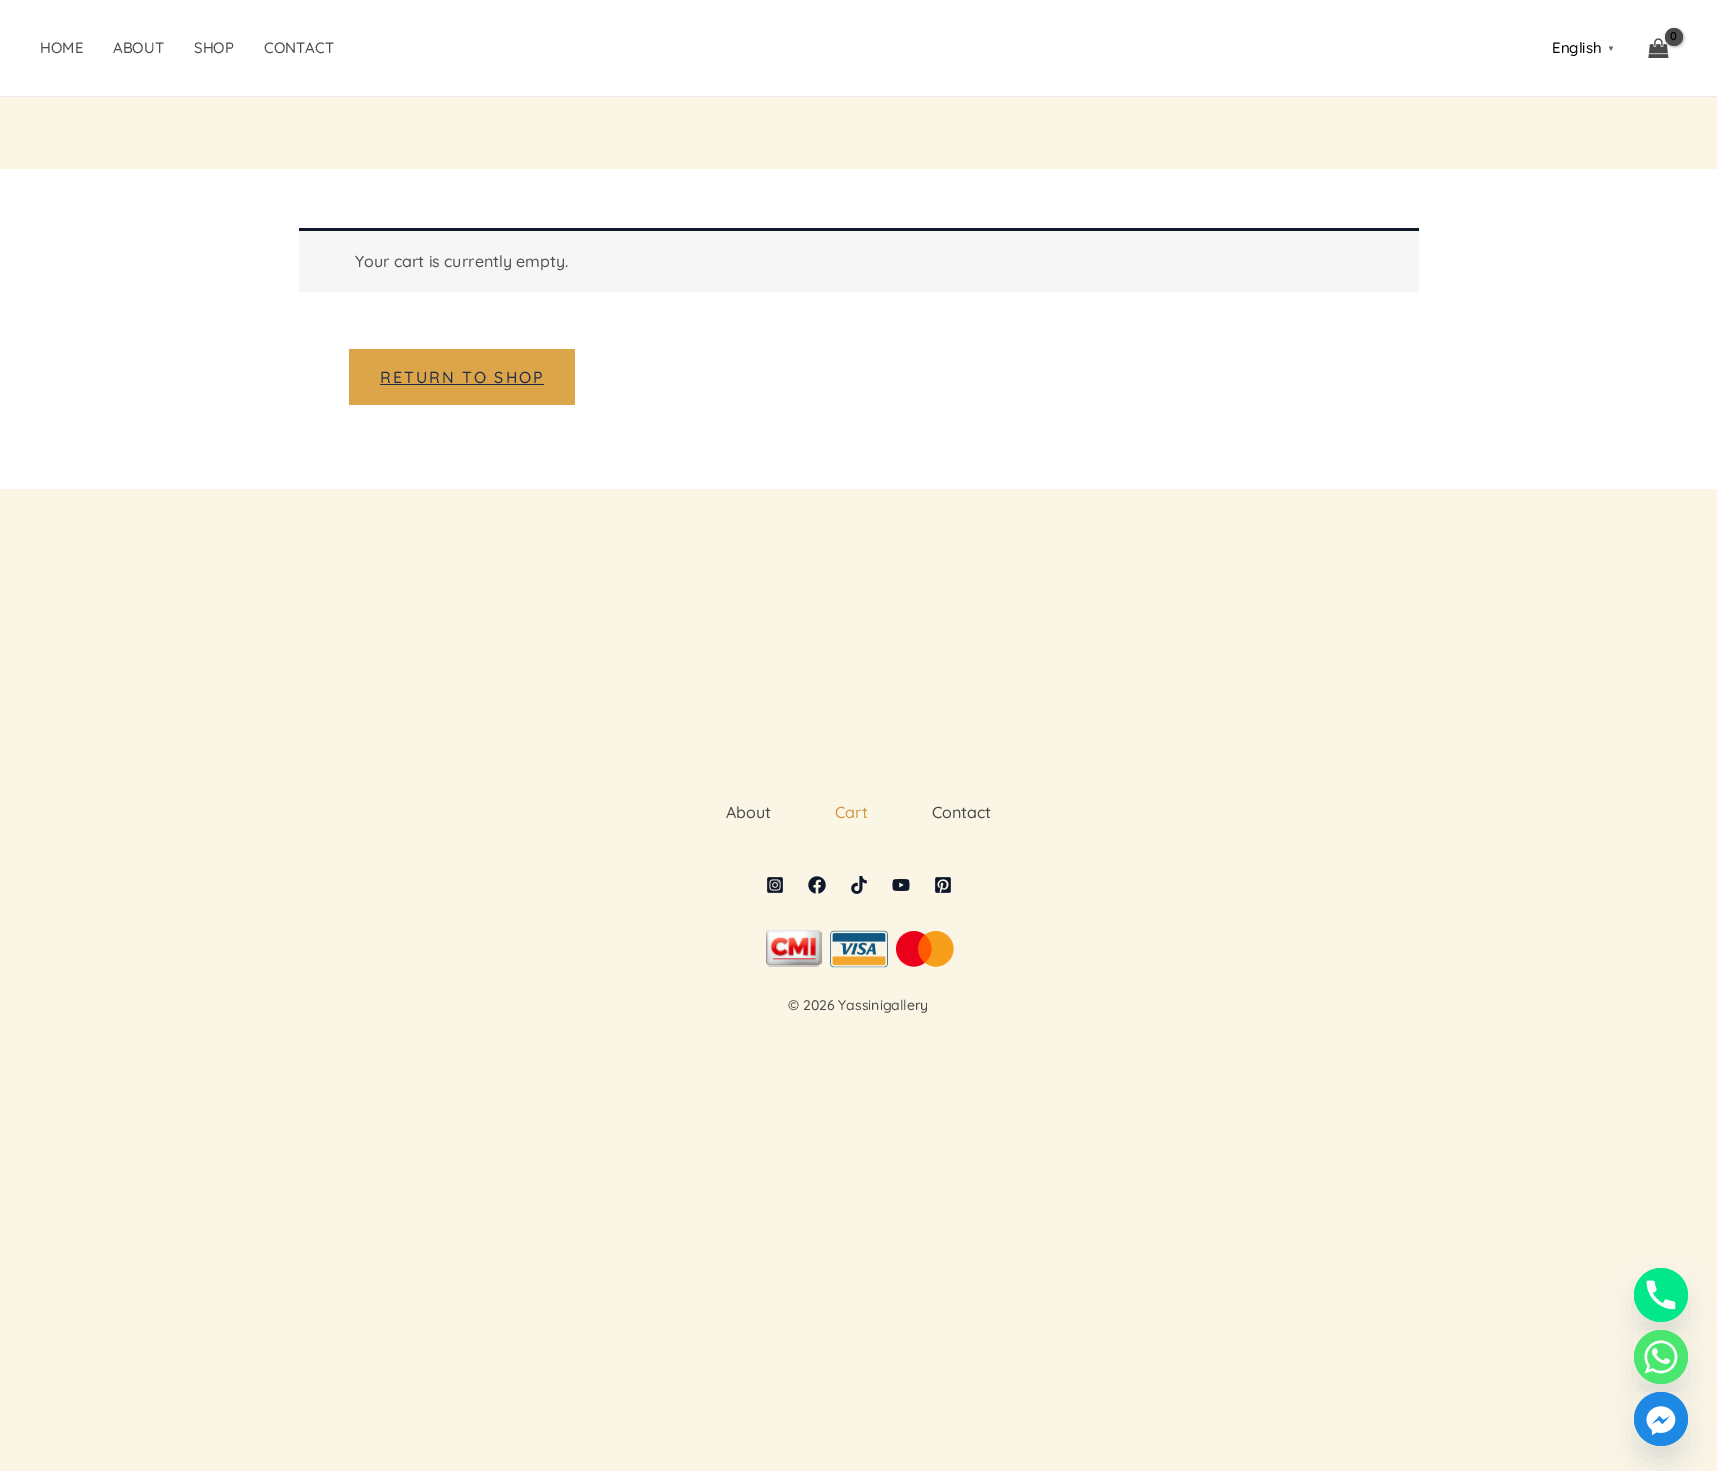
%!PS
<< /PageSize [1717 1471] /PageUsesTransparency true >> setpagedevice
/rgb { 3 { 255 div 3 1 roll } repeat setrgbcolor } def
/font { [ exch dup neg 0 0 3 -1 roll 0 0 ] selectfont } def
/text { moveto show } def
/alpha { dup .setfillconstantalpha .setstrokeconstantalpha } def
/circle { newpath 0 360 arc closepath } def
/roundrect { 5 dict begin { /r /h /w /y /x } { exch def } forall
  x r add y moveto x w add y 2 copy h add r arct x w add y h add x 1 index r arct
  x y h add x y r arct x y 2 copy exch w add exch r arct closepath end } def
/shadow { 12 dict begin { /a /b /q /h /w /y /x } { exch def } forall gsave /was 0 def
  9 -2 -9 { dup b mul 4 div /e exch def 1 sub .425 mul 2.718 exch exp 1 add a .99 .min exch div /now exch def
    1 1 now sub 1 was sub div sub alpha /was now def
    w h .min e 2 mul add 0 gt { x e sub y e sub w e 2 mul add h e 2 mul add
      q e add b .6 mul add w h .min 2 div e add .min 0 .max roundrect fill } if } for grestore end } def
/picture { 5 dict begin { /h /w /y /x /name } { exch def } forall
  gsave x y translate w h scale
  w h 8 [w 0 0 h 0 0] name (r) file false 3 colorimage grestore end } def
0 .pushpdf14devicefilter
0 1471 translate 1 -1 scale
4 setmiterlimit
250 245 229 rgb
0 0 1717 1471 rectfill
255 255 255 rgb
0 0 1717 96 rectfill
234 234 234 rgb
0 96 1717 1 rectfill
(img_01.rgb) 1648 38 21 20 picture
0 0 0 rgb
1666 29 18 18 9 1.5 0.3 shadow
74 74 74 rgb
1674 37 9 circle fill
255 255 255 rgb
0 169 1717 320 rectfill
247 246 247 rgb
299 231 1120 61 rectfill
15 23 42 rgb
299 228 1120 3 rectfill
220 165 74 rgb
349 349 226 56 rectfill
32 43 70 rgb
380 384 164 1 rectfill
(img_02.rgb) 767 877 16 16 picture
(img_03.rgb) 808 876 18 18 picture
(img_04.rgb) 851 876 16 18 picture
(img_05.rgb) 892 879 18 12 picture
(img_06.rgb) 935 877 16 16 picture
(img_07.rgb) 766 930 188 38 picture
73 104 126 rgb
1634 1284 54 54 27 12 0.16 shadow
(img_08.rgb) 1634 1268 54 54 picture
1634 1346 54 54 27 12 0.16 shadow
(img_09.rgb) 1634 1330 54 54 picture
1634 1408 54 54 27 12 0.16 shadow
(img_10.rgb) 1634 1392 54 54 picture
/Quicksand-Medium 15 font
74 74 74 rgb
(HOME) 40 53 text
(ABOUT) 113 53 text
(SHOP) 194 53 text
(CONTACT) 264 53 text
/Quicksand-Bold 11 font
0 0 0 rgb
(0) 1670 40 text
/Quicksand-Medium 15 font
(English) 1552 53 text
/LiberationSans-Bold 8 font
102 102 102 rgb
(▼) 1607 51 text
/Quicksand-Medium 16 font
81 81 81 rgb
(Your cart is currently empty.) 355 267 text
32 43 70 rgb
380 383 moveto 2 0 (RETURN TO SHOP) ashow
74 74 74 rgb
(About) 726 818 text
208 154 64 rgb
(Cart) 835 818 text
74 74 74 rgb
(Contact) 932 818 text
/Quicksand-Medium 14 font
(© 2026 Yassinigallery) 788 1010 text
.poppdf14devicefilter showpage
